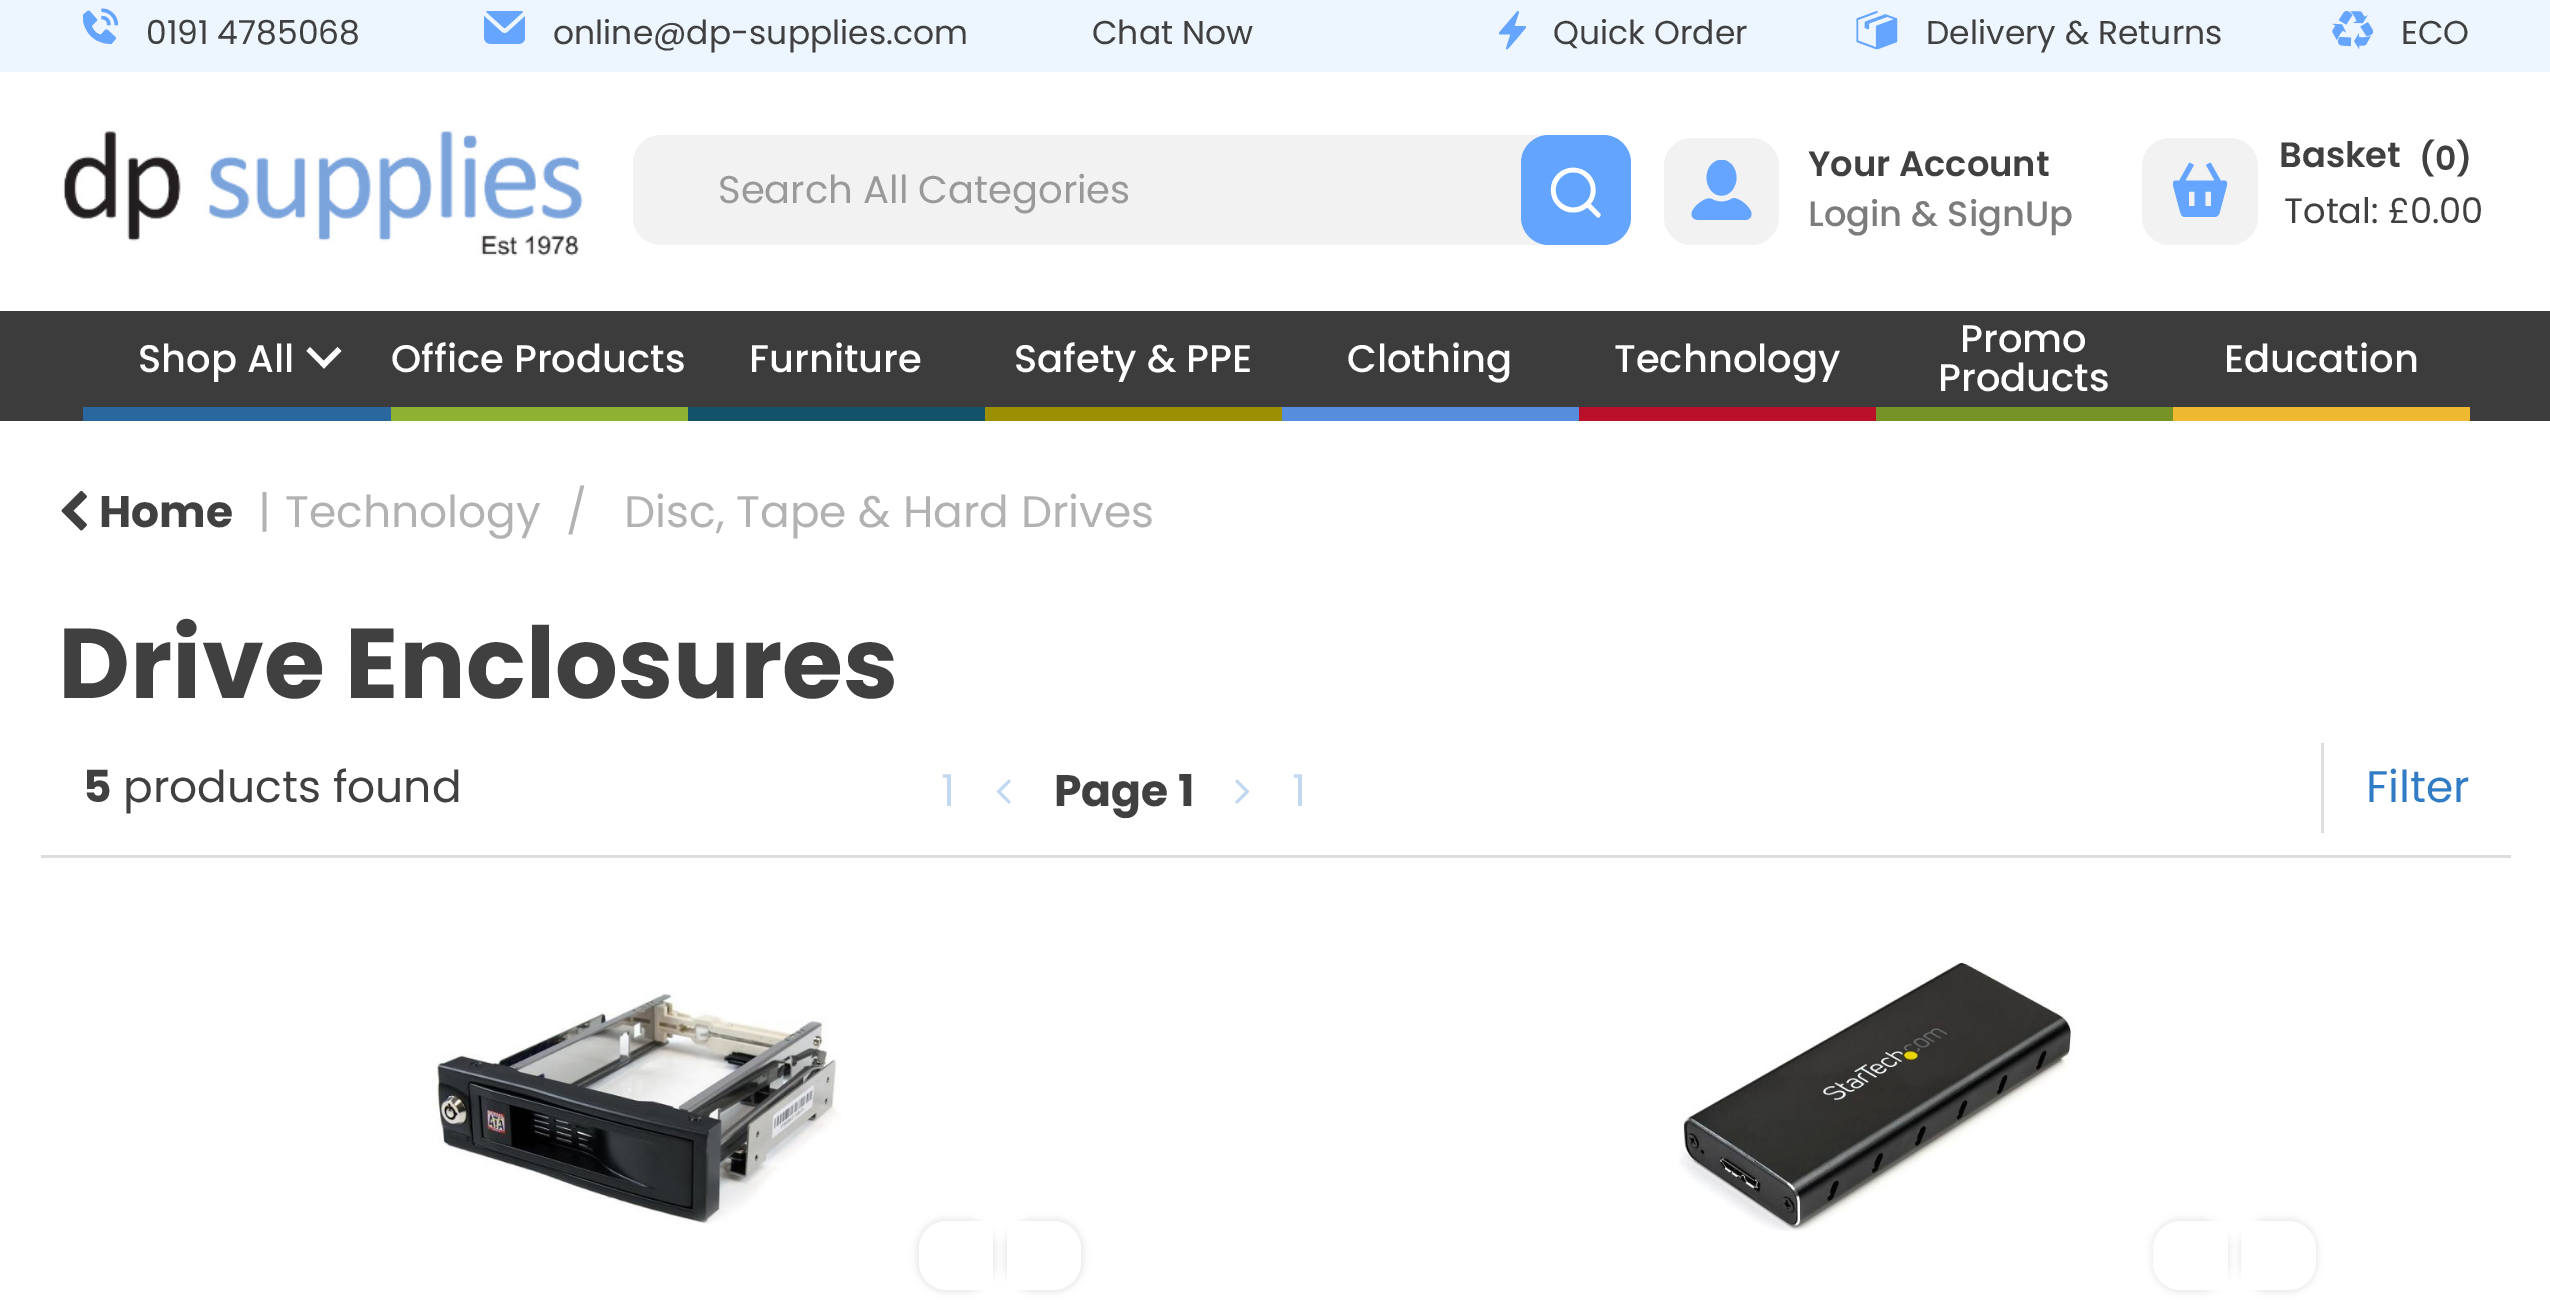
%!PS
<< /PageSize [2550 1300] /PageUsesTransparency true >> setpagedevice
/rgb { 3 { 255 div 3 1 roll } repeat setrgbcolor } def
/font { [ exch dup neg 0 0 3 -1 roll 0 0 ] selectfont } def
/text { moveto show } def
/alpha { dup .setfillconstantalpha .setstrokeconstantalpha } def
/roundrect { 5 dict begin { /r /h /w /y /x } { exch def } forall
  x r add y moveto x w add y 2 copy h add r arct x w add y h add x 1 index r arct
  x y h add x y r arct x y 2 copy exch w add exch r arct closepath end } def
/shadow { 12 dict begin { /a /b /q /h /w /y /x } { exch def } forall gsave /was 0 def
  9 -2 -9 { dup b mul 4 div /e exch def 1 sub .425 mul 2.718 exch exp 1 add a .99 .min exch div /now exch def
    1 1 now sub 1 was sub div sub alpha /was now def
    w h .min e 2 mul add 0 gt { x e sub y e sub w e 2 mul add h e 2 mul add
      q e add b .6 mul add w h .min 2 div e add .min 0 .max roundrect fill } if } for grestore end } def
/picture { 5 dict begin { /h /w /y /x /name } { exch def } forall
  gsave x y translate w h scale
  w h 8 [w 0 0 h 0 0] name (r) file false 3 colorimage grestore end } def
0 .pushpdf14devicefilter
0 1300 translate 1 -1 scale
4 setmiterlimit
255 255 255 rgb
0 0 2550 1300 rectfill
237 245 255 rgb
0 0 2550 72 rectfill
(img_01.rgb) 83 8 35 36 picture
(img_02.rgb) 484 11 41 33 picture
(img_03.rgb) 1499 11 27 39 picture
(img_04.rgb) 1856 11 42 39 picture
(img_05.rgb) 2332 11 41 39 picture
(img_06.rgb) 63 129 522 127 picture
242 242 242 rgb
633 135 998 110 28 roundrect fill
99 164 255 rgb
1521 135 110 110 28 roundrect fill
(img_07.rgb) 1550 167 51 51 picture
242 242 242 rgb
1664 138 115 107 28 roundrect fill
(img_08.rgb) 1691 160 61 60 picture
2142 138 116 107 28 roundrect fill
(img_09.rgb) 2173 162 55 55 picture
60 60 60 rgb
0 311 2550 110 rectfill
41 103 158 rgb
83 407 308 14 rectfill
255 255 255 rgb
310 347 moveto 17.5 17.5 rlineto -3.5 4 rlineto -17.5 -17.5 rlineto closepath fill
320 364.5 moveto 17.5 -17.5 rlineto 4 4 rlineto -17.5 17.5 rlineto closepath fill
143 177 49 rgb
391 407 297 14 rectfill
19 83 105 rgb
688 407 297 14 rectfill
155 144 1 rgb
985 407 297 14 rectfill
86 142 221 rgb
1282 407 297 14 rectfill
185 15 41 rgb
1579 407 297 14 rectfill
118 147 39 rgb
1876 407 297 14 rectfill
238 185 48 rgb
2173 407 297 14 rectfill
(img_10.rgb) 61 490 26 41 picture
(img_11.rgb) 996 779 15 25 picture
(img_12.rgb) 1235 779 15 25 picture
221 221 221 rgb
2321 743 3 90 rectfill
41 855 2470 3 rectfill
(img_13.rgb) 432 993 409 231 picture
0 0 0 rgb
916 1218 80 75 30 3 0.07 shadow
255 255 255 rgb
947 1221 moveto 46 0 rlineto 0 69 rlineto -46 0 rlineto -15.5 0 -28 -12.5 -28 -28 rcurveto 0 -13 rlineto 0 -15.5 12.5 -28 28 -28 rcurveto closepath fill
0 0 0 rgb
1004 1218 80 75 30 3 0.07 shadow
255 255 255 rgb
1007 1221 moveto 46 0 rlineto 15.5 0 28 12.5 28 28 rcurveto 0 13 rlineto 0 15.5 -12.5 28 -28 28 rcurveto -46 0 rlineto closepath fill
(img_14.rgb) 1679 962 396 269 picture
0 0 0 rgb
2151 1218 79 75 30 3 0.07 shadow
255 255 255 rgb
2181 1221 moveto 47 0 rlineto 0 69 rlineto -47 0 rlineto -15.5 0 -28 -12.5 -28 -28 rcurveto 0 -13 rlineto 0 -15.5 12.5 -28 28 -28 rcurveto closepath fill
0 0 0 rgb
2239 1218 79 75 30 3 0.07 shadow
255 255 255 rgb
2241 1221 moveto 47 0 rlineto 15.5 0 28 12.5 28 28 rcurveto 0 13 rlineto 0 15.5 -12.5 28 -28 28 rcurveto -47 0 rlineto closepath fill
/Poppins-Regular 33 font
64 64 64 rgb
(0191 4785068) 146 44 text
(online@dp-supplies.com) 553 44 text
(Chat Now) 1092 44 text
(Quick Order) 1553 44 text
(Delivery & Returns) 1926 44 text
(ECO) 2401 44 text
/Poppins-Regular 38.5 font
153 153 153 rgb
(Search All Categories) 718 203 text
/Poppins-SemiBold 35.25 font
64 64 64 rgb
(Your Account) 1808 176 text
/Poppins-Medium 35.25 font
124 124 124 rgb
(Login & SignUp) 1808 226 text
/Poppins-SemiBold 33 font
64 64 64 rgb
(\(0\)) 2419 170 text
/Poppins-SemiBold 35.25 font
(Basket) 2279 167 text
/Poppins-Regular 35.25 font
(Total: £0.00) 2284 223 text
/Poppins-Medium 38.5 font
255 255 255 rgb
(Shop All) 138 372 text
(Office Products) 391 372 text
(Furniture) 749 372 text
(Safety & PPE) 1014 372 text
(Clothing) 1347 372 text
(Technology) 1614 372 text
(Promo) 1960 352 text
(Products) 1938 391 text
(Education) 2224 372 text
/Poppins-Bold 44 font
64 64 64 rgb
(Home) 99 527 text
/Poppins-Regular 44 font
178 178 178 rgb
(|) 258 527 text
(Technology) 285 527 text
(/) 566 527 text
(Disc, Tape & Hard Drives) 624 527 text
/Poppins-Bold 99 font
64 64 64 rgb
(Drive Enclosures) 58 698 text
/Poppins-Bold 44 font
(5) 83 802 text
/Poppins-Regular 44 font
(products found) 123 802 text
193 216 238 rgb
(1) 941 806 text
/Poppins-Bold 44 font
64 64 64 rgb
(Page 1) 1054 806 text
/Poppins-Regular 44 font
193 216 238 rgb
(1) 1292 806 text
49 124 197 rgb
(Filter) 2366 802 text
.poppdf14devicefilter showpage
